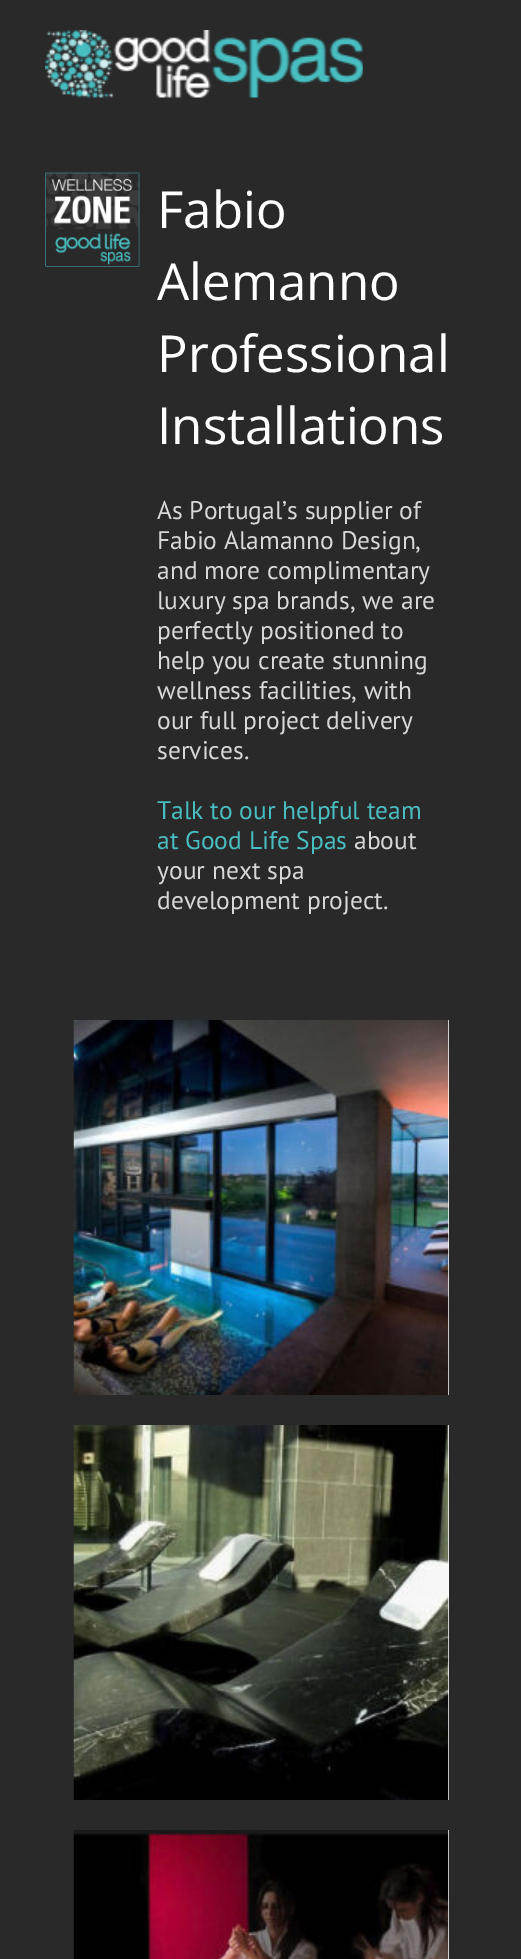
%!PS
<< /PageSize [521 1959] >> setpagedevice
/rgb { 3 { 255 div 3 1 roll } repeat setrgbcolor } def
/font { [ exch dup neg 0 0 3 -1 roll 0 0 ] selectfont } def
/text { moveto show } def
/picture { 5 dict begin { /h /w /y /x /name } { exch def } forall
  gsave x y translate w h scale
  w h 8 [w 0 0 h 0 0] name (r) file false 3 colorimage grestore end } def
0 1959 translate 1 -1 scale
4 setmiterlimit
41 41 41 rgb
0 0 521 1959 rectfill
(img_01.rgb) 45 30 318 68 picture
(img_02.rgb) 45 172 95 95 picture
255 255 255 rgb
448 1020 1 375 rectfill
(img_03.rgb) 73 1020 376 375 picture
448 1425 1 375 rectfill
(img_04.rgb) 73 1425 376 375 picture
448 1830 1 129 rectfill
(img_05.rgb) 73 1830 376 129 picture
/OpenSans-Regular 51 font
(Fabio) 157 228 text
(Alemanno) 157 300 text
(Professional) 157 372 text
(Installations) 157 444 text
/PTSans-Regular 25.5 font
216 216 216 rgb
(As Portugal’s supplier of) 157 519 text
(Fabio Alamanno Design,) 157 549 text
(and more complimentary) 157 579 text
(luxury spa brands, we are) 157 609 text
(perfectly positioned to) 157 639 text
(help you create stunning) 157 669 text
(wellness facilities, with) 157 699 text
(our full project delivery) 157 729 text
(services.) 157 759 text
73 190 193 rgb
(Talk to our helpful team) 157 819 text
(at Good Life Spas) 157 849 text
216 216 216 rgb
(about) 354 849 text
(your next spa) 157 879 text
(development project.) 157 909 text
showpage
